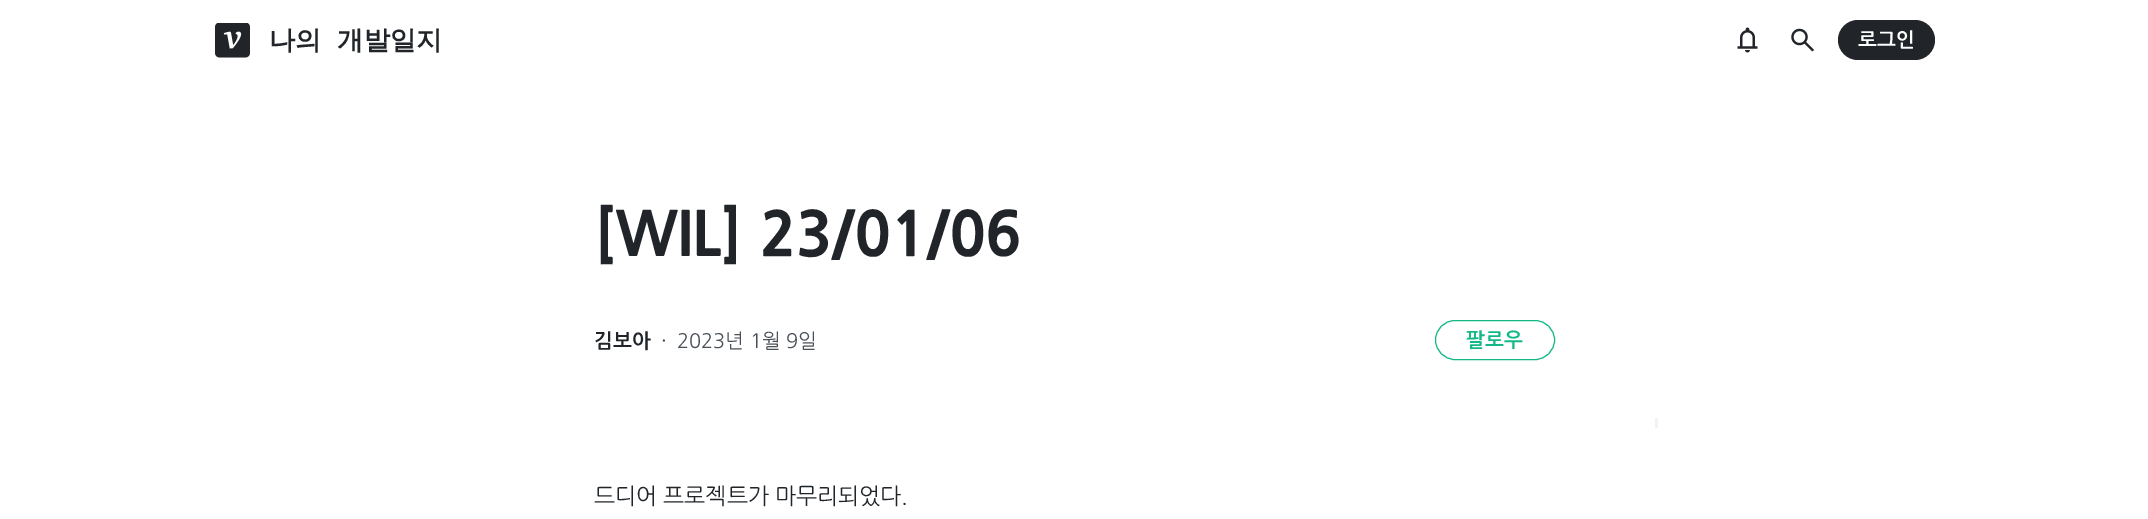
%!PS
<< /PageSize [2148 519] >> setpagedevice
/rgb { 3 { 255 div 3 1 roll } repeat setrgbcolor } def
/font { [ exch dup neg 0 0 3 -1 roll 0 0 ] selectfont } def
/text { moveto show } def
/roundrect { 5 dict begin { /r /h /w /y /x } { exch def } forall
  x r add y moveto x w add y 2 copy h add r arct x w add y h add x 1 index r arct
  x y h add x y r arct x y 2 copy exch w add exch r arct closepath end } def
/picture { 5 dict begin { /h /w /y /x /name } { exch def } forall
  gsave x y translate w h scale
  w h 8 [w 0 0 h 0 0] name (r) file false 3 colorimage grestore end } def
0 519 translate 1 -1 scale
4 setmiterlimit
255 255 255 rgb
0 0 2148 519 rectfill
(img_01.rgb) 215 23 35 35 picture
(img_02.rgb) 1737 27 21 26 picture
(img_03.rgb) 1791 28 23 24 picture
33 37 41 rgb
1838 20 97 40 20 roundrect fill
18 184 134 rgb
1435.5 320.5 119 39 19.5 roundrect stroke
241 243 245 rgb
1655 418 3 10 rectfill
/WenQuanYiZenHei-Bold 26.25 font
33 37 41 rgb
269 49 moveto 8 0 32 (나의 개발일지) widthshow
/NanumGothic-Bold 20 font
255 255 255 rgb
(로그인) 1858 47 text
/NanumGothic-ExtraBold 60 font
33 37 41 rgb
594 256 moveto -0.25 0 ([WIL] 23/01/06) ashow
/NanumGothic-Bold 20 font
(김보아) 594 348 text
/NanumGothic-Regular 20 font
73 80 87 rgb
(·) 661 348 text
(2023년 1월 9일) 677 348 text
/NanumGothic-Bold 20 font
18 184 134 rgb
(팔로우) 1466 347 text
/NanumGothic-Regular 22.5 font
33 37 41 rgb
594 504 moveto -0.1 0 (드디어 프로젝트가 마무리되었다.) ashow
showpage
